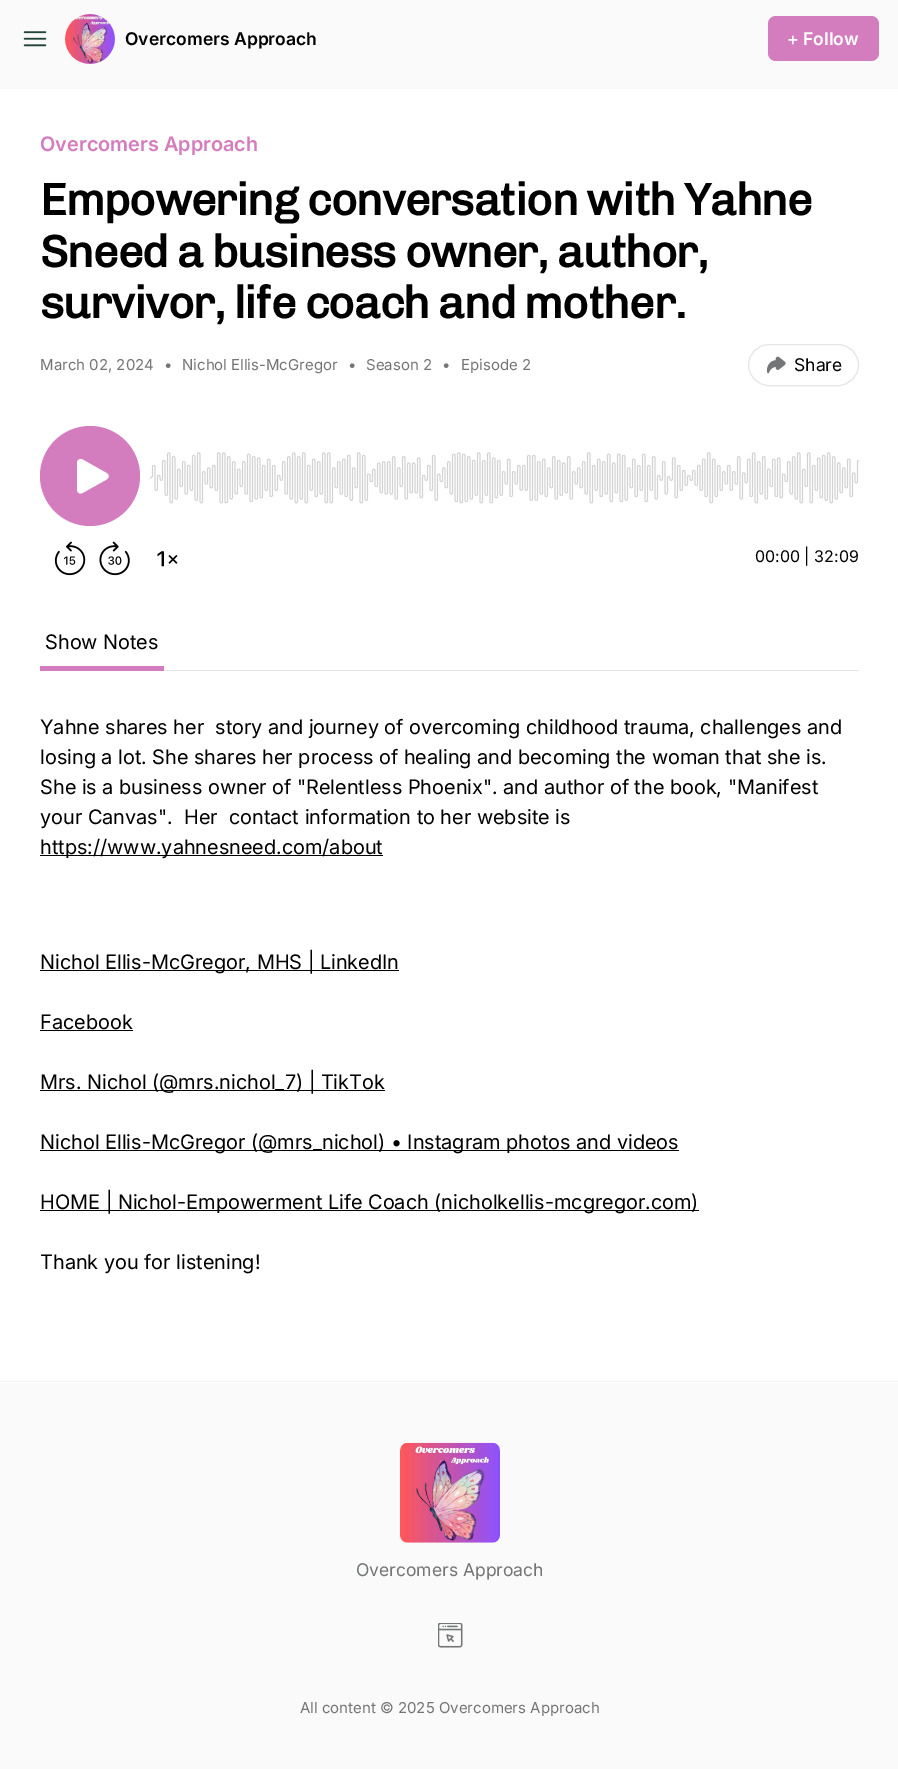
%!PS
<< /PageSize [898 1769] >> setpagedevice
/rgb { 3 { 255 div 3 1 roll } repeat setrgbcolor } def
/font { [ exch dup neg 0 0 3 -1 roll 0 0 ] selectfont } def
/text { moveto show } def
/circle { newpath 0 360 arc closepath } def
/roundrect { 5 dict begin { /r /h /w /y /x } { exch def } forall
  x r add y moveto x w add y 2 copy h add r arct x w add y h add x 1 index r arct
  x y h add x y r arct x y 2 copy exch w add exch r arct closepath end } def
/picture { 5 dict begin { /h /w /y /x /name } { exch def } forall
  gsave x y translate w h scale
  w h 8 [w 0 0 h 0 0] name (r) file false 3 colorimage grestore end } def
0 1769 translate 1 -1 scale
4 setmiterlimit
255 255 255 rgb
0 0 898 1769 rectfill
250 250 250 rgb
0 0 898 89 rectfill
(img_01.rgb) 23 31 24 16 picture
(img_02.rgb) 65 14 50 50 picture
212 125 190 rgb
768 16 111 45 8 roundrect fill
228 229 230 rgb
748.5 344.5 110 41 20.5 roundrect stroke
(img_03.rgb) 766 356 20 18 picture
(img_04.rgb) 54 541 32 35 picture
(img_05.rgb) 99 541 31 35 picture
(img_06.rgb) 157 551 21 16 picture
212 125 190 rgb
90 476 50 circle fill
255 255 255 rgb
77 463 moveto 0 -3 3 -5 5.5 -3.5 rcurveto 24 13.5 rlineto 3 1.5 3 5 0 6.5 rcurveto -24 13.5 rlineto -2.5 1.5 -5.5 -0.5 -5.5 -3.5 rcurveto closepath eofill
(img_07.rgb) 150 452 709 52 picture
228 229 230 rgb
164 670 695 1 rectfill
212 125 190 rgb
40 666 124 5 rectfill
0 0 0 rgb
40 855 343 1 rectfill
40 970 359 1 rectfill
40 1030 93 1 rectfill
40 1090 345 1 rectfill
40 1150 639 1 rectfill
40 1210 659 1 rectfill
250 250 250 rgb
0 1383 898 386 rectfill
244 244 244 rgb
0 1381 898 1 rectfill
(img_08.rgb) 400 1442 100 101 picture
(img_09.rgb) 438 1623 25 25 picture
/Inter-SemiBold 17.5 font
0 0 0 rgb
(Overcomers Approach) 125 45 text
255 255 255 rgb
(+ Follow) 787 45 text
/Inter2-SemiBold 20 font
212 125 190 rgb
(Overcomers Approach) 40 151 text
/Chivo-Bold 45 font
0 0 0 rgb
40 215 moveto -1.1 0 (Empowering conversation with Yahne) ashow
40 267 moveto -1.1 0 (Sneed a business owner, author,) ashow
40 318 moveto -1.1 0 (survivor, life coach and mother.) ashow
/Inter-Regular 15 font
116 117 118 rgb
(March 02, 2024) 40 370 text
(•) 164 370 text
(Nichol Ellis-McGregor) 182 370 text
(•) 348 370 text
(Season 2) 366 370 text
(•) 442 370 text
(Episode 2) 461 370 text
/Inter-Regular 17.5 font
0 0 0 rgb
(Share) 794 371 text
/Inter-Regular 16 font
(00:00 | 32:09) 755 562 text
/Inter2-Regular 20 font
(Show Notes) 45 649 text
(Yahne shares her  story and journey of overcoming childhood trauma, challenges and) 40 734 text
(losing a lot. She shares her process of healing and becoming the woman that she is.) 40 764 text
(She is a business owner of "Relentless Phoenix". and author of the book, "Manifest) 40 794 text
(your Canvas".  Her  contact information to her website is) 40 824 text
(https://www.yahnesneed.com/about) 40 854 text
(Nichol Ellis-McGregor, MHS | LinkedIn) 40 969 text
(Facebook) 40 1029 text
(Mrs. Nichol \(@mrs.nichol_7\) | TikTok) 40 1089 text
(Nichol Ellis-McGregor \(@mrs_nichol\) • Instagram photos and videos) 40 1149 text
(HOME | Nichol-Empowerment Life Coach \(nicholkellis-mcgregor.com\)) 40 1209 text
(Thank you for listening!) 40 1269 text
/Inter-Regular 17.5 font
116 117 118 rgb
(Overcomers Approach) 356 1576 text
/Inter-Regular 15 font
(All content © 2025 Overcomers Approach) 300 1713 text
showpage
